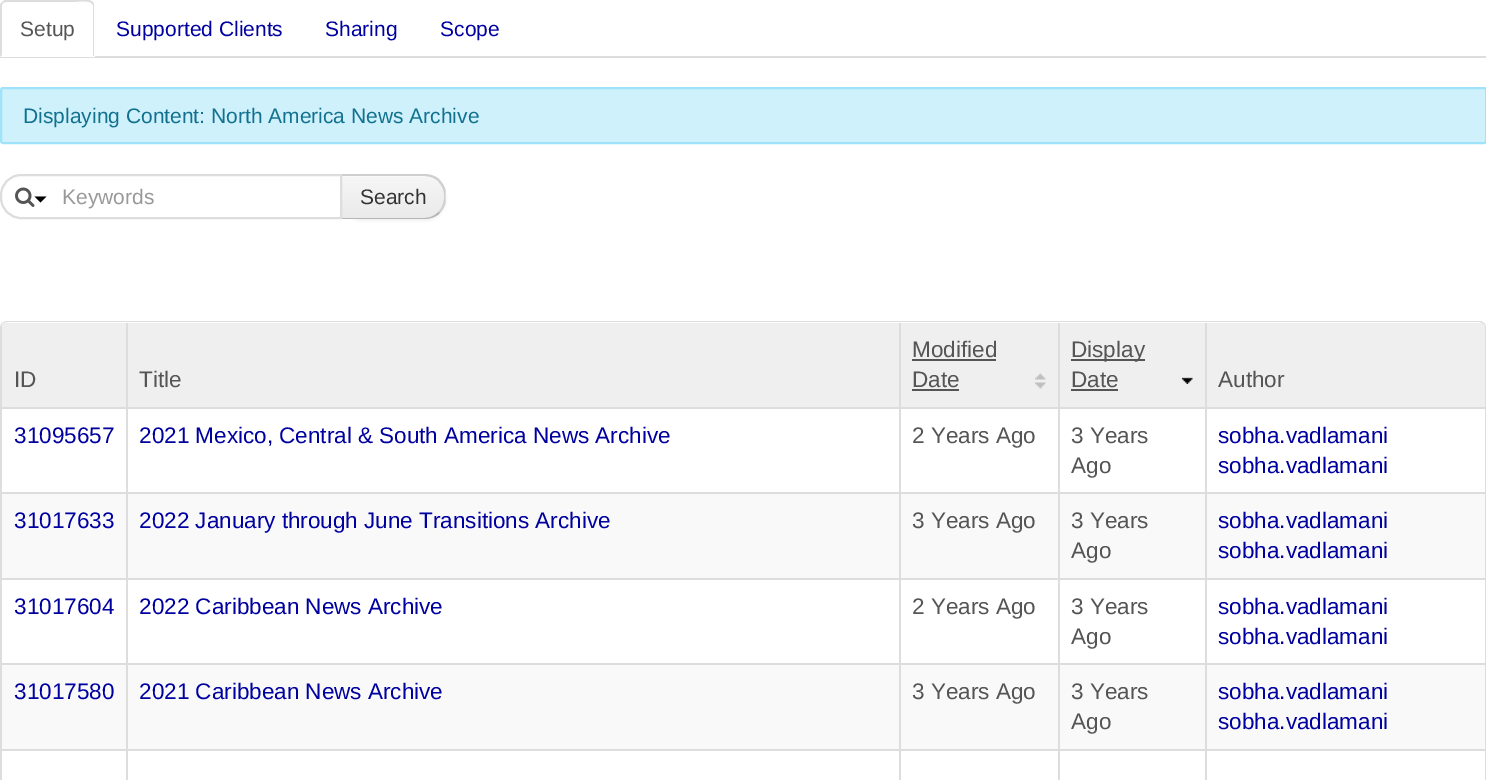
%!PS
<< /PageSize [1486 780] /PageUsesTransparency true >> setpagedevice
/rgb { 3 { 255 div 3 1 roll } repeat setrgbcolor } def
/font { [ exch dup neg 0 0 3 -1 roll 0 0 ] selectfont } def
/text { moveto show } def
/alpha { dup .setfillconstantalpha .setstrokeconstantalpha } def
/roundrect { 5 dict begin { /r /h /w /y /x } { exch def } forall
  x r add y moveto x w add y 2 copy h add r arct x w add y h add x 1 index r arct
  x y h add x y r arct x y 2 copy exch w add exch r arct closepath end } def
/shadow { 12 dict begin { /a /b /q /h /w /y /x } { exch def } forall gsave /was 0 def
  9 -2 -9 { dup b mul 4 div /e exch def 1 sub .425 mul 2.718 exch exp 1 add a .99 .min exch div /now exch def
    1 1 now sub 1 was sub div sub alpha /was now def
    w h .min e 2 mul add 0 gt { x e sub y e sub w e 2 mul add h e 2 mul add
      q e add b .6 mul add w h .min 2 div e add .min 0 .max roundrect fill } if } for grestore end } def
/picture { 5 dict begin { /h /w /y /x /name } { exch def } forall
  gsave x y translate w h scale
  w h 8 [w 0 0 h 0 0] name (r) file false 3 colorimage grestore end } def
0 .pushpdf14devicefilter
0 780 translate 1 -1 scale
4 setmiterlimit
255 255 255 rgb
0 0 1486 780 rectfill
221 221 221 rgb
0 56 1486 2 rectfill
255 255 255 rgb
6 0 moveto 83 0 rlineto 3.5 0 6 2.5 6 6 rcurveto 0 51 rlineto -95 0 rlineto 0 -51 rlineto 0 -3.5 2.5 -6 6 -6 rcurveto closepath fill
221 221 221 rgb
6 0 moveto -2 0 -3 1 -4 2 rcurveto 1 1 rlineto 3 -1 rlineto 68 0 rlineto 1 0 14 -2 17 1 rcurveto 2 -1 rlineto -1 -1 -3 -2 -5 -2 rcurveto closepath fill
93 2 moveto 1 1 1 3 1 4 rcurveto 0 50 rlineto -1 0 rlineto 0 -51 rlineto -2 -2 rlineto closepath fill
0 57 moveto 2 -2 rlineto 0 -50 rlineto 1 -2 rlineto -1 -1 rlineto -1 1 -2 2 -2 4 rcurveto closepath fill
206 241 252 rgb
1 88 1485 55 2 roundrect gsave fill grestore
158 227 249 rgb
2 setlinewidth
stroke
0 0 0 rgb
341 176 105 45 21 1.5 0.05 shadow
241 241 241 rgb
341 174 moveto 84 0 rlineto 11.5 0 21 9.5 21 21 rcurveto 0 3 rlineto 0 11.5 -9.5 21 -21 21 rcurveto -84 0 rlineto closepath fill
gsave
341 174 moveto 84 0 rlineto 11.5 0 21 9.5 21 21 rcurveto 0 3 rlineto 0 11.5 -9.5 21 -21 21 rcurveto -84 0 rlineto closepath clip newpath
gsave 342 176 moveto 104 0 rlineto 0 42 rlineto -104 0 rlineto closepath clip newpath
<< /ShadingType 2 /ColorSpace /DeviceRGB /Coords [393 176 393 218] /Extend [true true] /Function << /FunctionType 2 /Domain [0 1] /C0 [0.965 0.965 0.965] /C1 [0.918 0.918 0.918] /N 1 >> >> shfill grestore
grestore
248 248 248 rgb
342 177 moveto 82 0 rlineto 11 0 20 9 20 19 rcurveto 0 -11 -9 -20 -20 -20 rcurveto -82 0 rlineto closepath fill
207 207 207 rgb
340 174 moveto 2 2 rlineto 82 0 rlineto 6 0 10 2 14 5 rcurveto 2 -1 rlineto -4 -4 -10 -6 -16 -6 rcurveto closepath fill
445.5 202.5 moveto -1 4 -3 7.5 -6 10.5 rcurveto -1 -1 rlineto 7.5 -8 8 -23 -0.5 -30.5 rcurveto 1.5 -1.5 rlineto 3 3 5 6.5 6 10.5 rcurveto closepath fill
181 181 181 rgb
340 219 moveto 84 0 rlineto 6 0 12 -2 16 -6 rcurveto -2 -1 rlineto -3 4 -8 6 -14 6 rcurveto -82 0 rlineto closepath fill
255 255 255 rgb
21 175 moveto 320 0 rlineto 0 43 rlineto -320 0 rlineto -11 0 -20 -9 -20 -20 rcurveto 0 -3 rlineto 0 -11 9 -20 20 -20 rcurveto closepath gsave fill grestore
221 221 221 rgb
stroke
(img_01.rgb) 15 187 20 20 picture
0 0 0 rgb
34.5 196.5 moveto 12 0 rlineto -6 6 rlineto closepath fill
221 221 221 rgb
8 321 moveto 1471 0 rlineto 4 0 7 3 7 7 rcurveto 0 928 rlineto 0 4 -3 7 -7 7 rcurveto -1471 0 rlineto -5 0 -8 -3 -8 -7 rcurveto 0 -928 rlineto 0 -4 3 -7 8 -7 rcurveto closepath 8 322 moveto 1471 0 rlineto 3 0 6 3 6 6 rcurveto 0 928 rlineto 0 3 -3 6 -6 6 rcurveto -1471 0 rlineto -5 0 -8 -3 -8 -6 rcurveto 0 -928 rlineto 0 -3 3 -6 8 -6 rcurveto closepath eofill
240 239 239 rgb
0 328 moveto 0 79 rlineto 126 0 rlineto 0 -84 rlineto -122 0 rlineto -2 1 -4 3 -4 5 rcurveto closepath fill
221 221 221 rgb
0 328 moveto 0 79 rlineto 2 0 rlineto 0 -83 rlineto -1 1 -2 3 -2 4 rcurveto closepath fill
240 239 239 rgb
128 323 771 84 rectfill
221 221 221 rgb
126 323 2 84 rectfill
240 239 239 rgb
901 323 157 84 rectfill
221 221 221 rgb
899 323 2 84 rectfill
85 85 85 rgb
912 359 84 2 rectfill
912 389 47 2 rectfill
(img_02.rgb) 1035 373 11 16 picture
240 239 239 rgb
1060 323 145 84 rectfill
221 221 221 rgb
1058 323 2 84 rectfill
85 85 85 rgb
1071 359 74 2 rectfill
1071 389 47 2 rectfill
(img_03.rgb) 1182 377 11 7 picture
240 239 239 rgb
1205 323 moveto 0 84 rlineto 280 0 rlineto 0 -79 rlineto 0 -2 -1 -4 -4 -5 rcurveto closepath fill
221 221 221 rgb
1205 323 2 84 rectfill
0 407 1485 2 rectfill
0 407 2 85 rectfill
126 407 2 85 rectfill
899 407 2 85 rectfill
1058 407 2 85 rectfill
1205 407 2 85 rectfill
249 249 249 rgb
2 494 124 84 rectfill
221 221 221 rgb
0 492 1485 2 rectfill
0 492 2 86 rectfill
249 249 249 rgb
128 494 771 84 rectfill
221 221 221 rgb
126 492 2 86 rectfill
249 249 249 rgb
901 494 157 84 rectfill
221 221 221 rgb
899 492 2 86 rectfill
249 249 249 rgb
1060 494 145 84 rectfill
221 221 221 rgb
1058 492 2 86 rectfill
249 249 249 rgb
1207 494 278 84 rectfill
221 221 221 rgb
1205 492 2 86 rectfill
0 578 1485 2 rectfill
0 578 2 85 rectfill
126 578 2 85 rectfill
899 578 2 85 rectfill
1058 578 2 85 rectfill
1205 578 2 85 rectfill
249 249 249 rgb
2 665 124 84 rectfill
221 221 221 rgb
0 663 1485 2 rectfill
0 663 2 86 rectfill
249 249 249 rgb
128 665 771 84 rectfill
221 221 221 rgb
126 663 2 86 rectfill
249 249 249 rgb
901 665 157 84 rectfill
221 221 221 rgb
899 663 2 86 rectfill
249 249 249 rgb
1060 665 145 84 rectfill
221 221 221 rgb
1058 663 2 86 rectfill
249 249 249 rgb
1207 665 278 84 rectfill
221 221 221 rgb
1205 663 2 86 rectfill
0 749 1485 2 rectfill
0 749 2 31 rectfill
126 749 2 31 rectfill
899 749 2 31 rectfill
1058 749 2 31 rectfill
1205 749 2 31 rectfill
/LiberationSans-Regular 21 font
85 85 85 rgb
(Setup) 20 36 text
0 0 160 rgb
(Supported Clients) 116 36 text
(Sharing) 325 36 text
(Scope) 440 36 text
18 113 143 rgb
(Displaying Content: North America News Archive) 23 123 text
153 153 153 rgb
(Keywords) 62 204 text
51 51 51 rgb
(Search) 360 204 text
/LiberationSans-Regular 22.5 font
85 85 85 rgb
(ID) 14 387 text
(Title) 139 387 text
(Modified) 912 357 text
(Date) 912 387 text
(Display) 1071 357 text
(Date) 1071 387 text
(Author) 1218 387 text
0 0 160 rgb
(31095657) 14 443 text
(2021 Mexico, Central & South America News Archive) 139 443 text
85 85 85 rgb
(2 Years Ago) 912 443 text
(3 Years) 1071 443 text
(Ago) 1071 473 text
0 0 160 rgb
(sobha.vadlamani) 1218 443 text
(sobha.vadlamani) 1218 473 text
(31017633) 14 528 text
(2022 January through June Transitions Archive) 139 528 text
85 85 85 rgb
(3 Years Ago) 912 528 text
(3 Years) 1071 528 text
(Ago) 1071 558 text
0 0 160 rgb
(sobha.vadlamani) 1218 528 text
(sobha.vadlamani) 1218 558 text
(31017604) 14 614 text
(2022 Caribbean News Archive) 139 614 text
85 85 85 rgb
(2 Years Ago) 912 614 text
(3 Years) 1071 614 text
(Ago) 1071 644 text
0 0 160 rgb
(sobha.vadlamani) 1218 614 text
(sobha.vadlamani) 1218 644 text
(31017580) 14 699 text
(2021 Caribbean News Archive) 139 699 text
85 85 85 rgb
(3 Years Ago) 912 699 text
(3 Years) 1071 699 text
(Ago) 1071 729 text
0 0 160 rgb
(sobha.vadlamani) 1218 699 text
(sobha.vadlamani) 1218 729 text
.poppdf14devicefilter showpage
